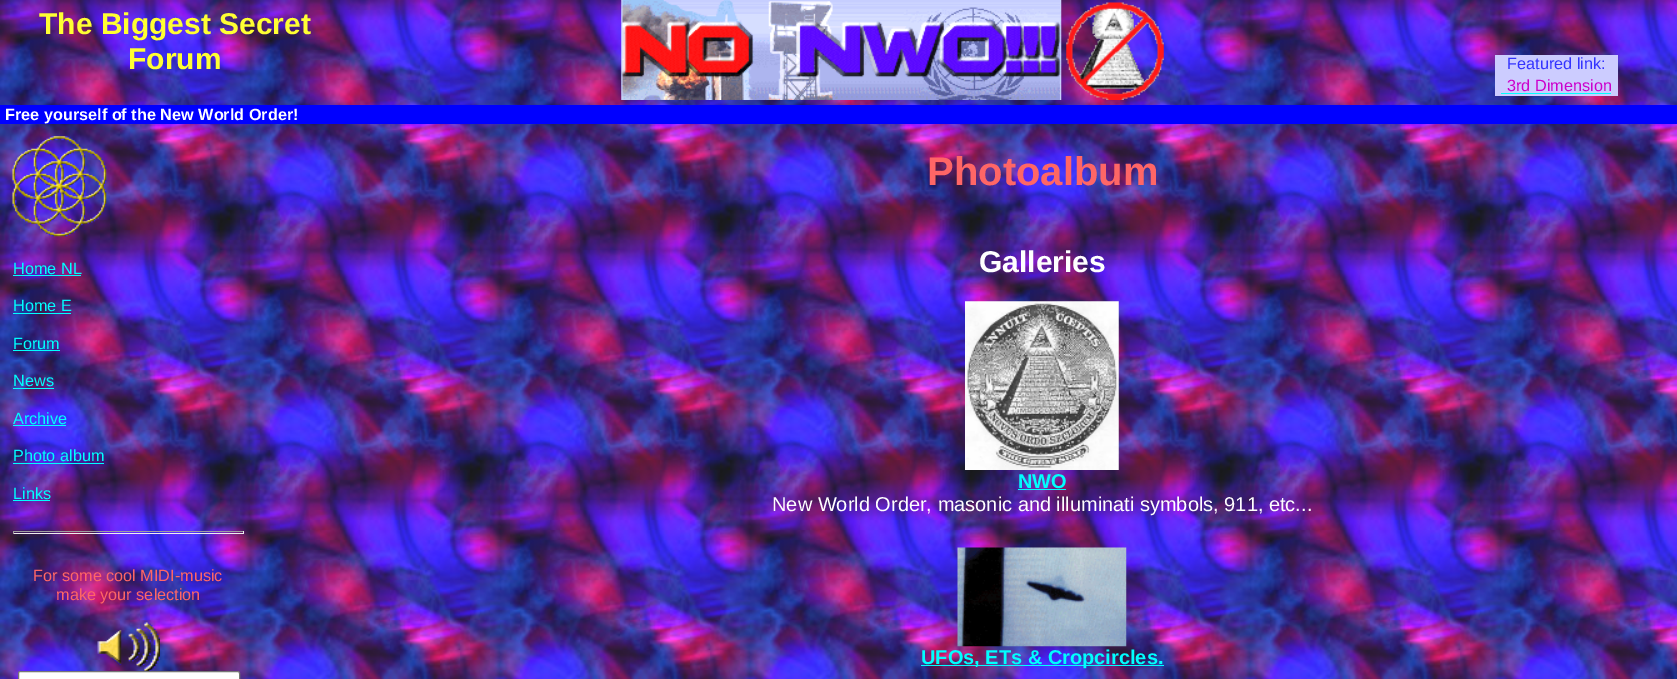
%!PS
<< /PageSize [1677 679] >> setpagedevice
/rgb { 3 { 255 div 3 1 roll } repeat setrgbcolor } def
/font { [ exch dup neg 0 0 3 -1 roll 0 0 ] selectfont } def
/text { moveto show } def
/roundrect { 5 dict begin { /r /h /w /y /x } { exch def } forall
  x r add y moveto x w add y 2 copy h add r arct x w add y h add x 1 index r arct
  x y h add x y r arct x y 2 copy exch w add exch r arct closepath end } def
/picture { 5 dict begin { /h /w /y /x /name } { exch def } forall
  gsave x y translate w h scale
  w h 8 [w 0 0 h 0 0] name (r) file false 3 colorimage grestore end } def
0 679 translate 1 -1 scale
4 setmiterlimit
255 255 255 rgb
0 0 1677 679 rectfill
(img_01.rgb) 0 0 1677 679 picture
(img_02.rgb) 621 0 441 100 picture
(img_03.rgb) 1066 2 98 98 picture
204 204 255 rgb
1495 55 123 41 rectfill
0 255 255 rgb
1501 93 110 1 rectfill
0 0 255 rgb
0 105 1677 19 rectfill
(img_04.rgb) 12 136 95 101 picture
0 255 255 rgb
13 275 68 1 rectfill
13 313 58 1 rectfill
13 350 47 1 rectfill
13 388 41 1 rectfill
13 425 53 1 rectfill
13 463 91 1 rectfill
13 500 37 1 rectfill
159 159 159 rgb
13 531 231 1 rectfill
238 238 238 rgb
243 531 1 3 rectfill
13 533 231 1 rectfill
159 159 159 rgb
13 531 1 3 rectfill
(img_05.rgb) 97 622 63 49 picture
255 255 255 rgb
18.5 671.5 221 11 2 roundrect gsave fill grestore
118 118 118 rgb
stroke
(img_06.rgb) 965 301 154 169 picture
0 255 255 rgb
1018 489 48 1 rectfill
(img_07.rgb) 957 547 170 100 picture
921 665 243 1 rectfill
/LiberationSans-Bold 30 font
255 255 51 rgb
(The Biggest Secret) 39 34 text
(Forum) 128 69 text
/LiberationSans-Regular 16.25 font
51 51 255 rgb
(Featured link:) 1507 69 text
204 0 204 rgb
(3rd Dimension) 1507 91 text
/LiberationSans-Bold 16.25 font
255 255 255 rgb
(Free yourself of the New World Order!) 5 120 text
/LiberationSans-Regular 16.25 font
0 255 255 rgb
(Home NL) 13 274 text
(Home E) 13 311 text
(Forum) 13 349 text
(News) 13 386 text
(Archive) 13 424 text
(Photo album) 13 461 text
(Links) 13 499 text
255 102 102 rgb
(For some cool MIDI-music) 33 581 text
(make your selection) 56 600 text
/LiberationSans-Bold 40 font
(Photoalbum) 927 185 text
/LiberationSans-Bold 30 font
255 255 255 rgb
(Galleries) 979 272 text
/LiberationSans-Bold 20 font
0 255 255 rgb
(NWO) 1018 488 text
/LiberationSans-Regular 20 font
255 255 255 rgb
(New World Order, masonic and illuminati symbols, 911, etc...) 772 511 text
/LiberationSans-Bold 20 font
0 255 255 rgb
(UFOs, ETs & Cropcircles.) 921 664 text
showpage
